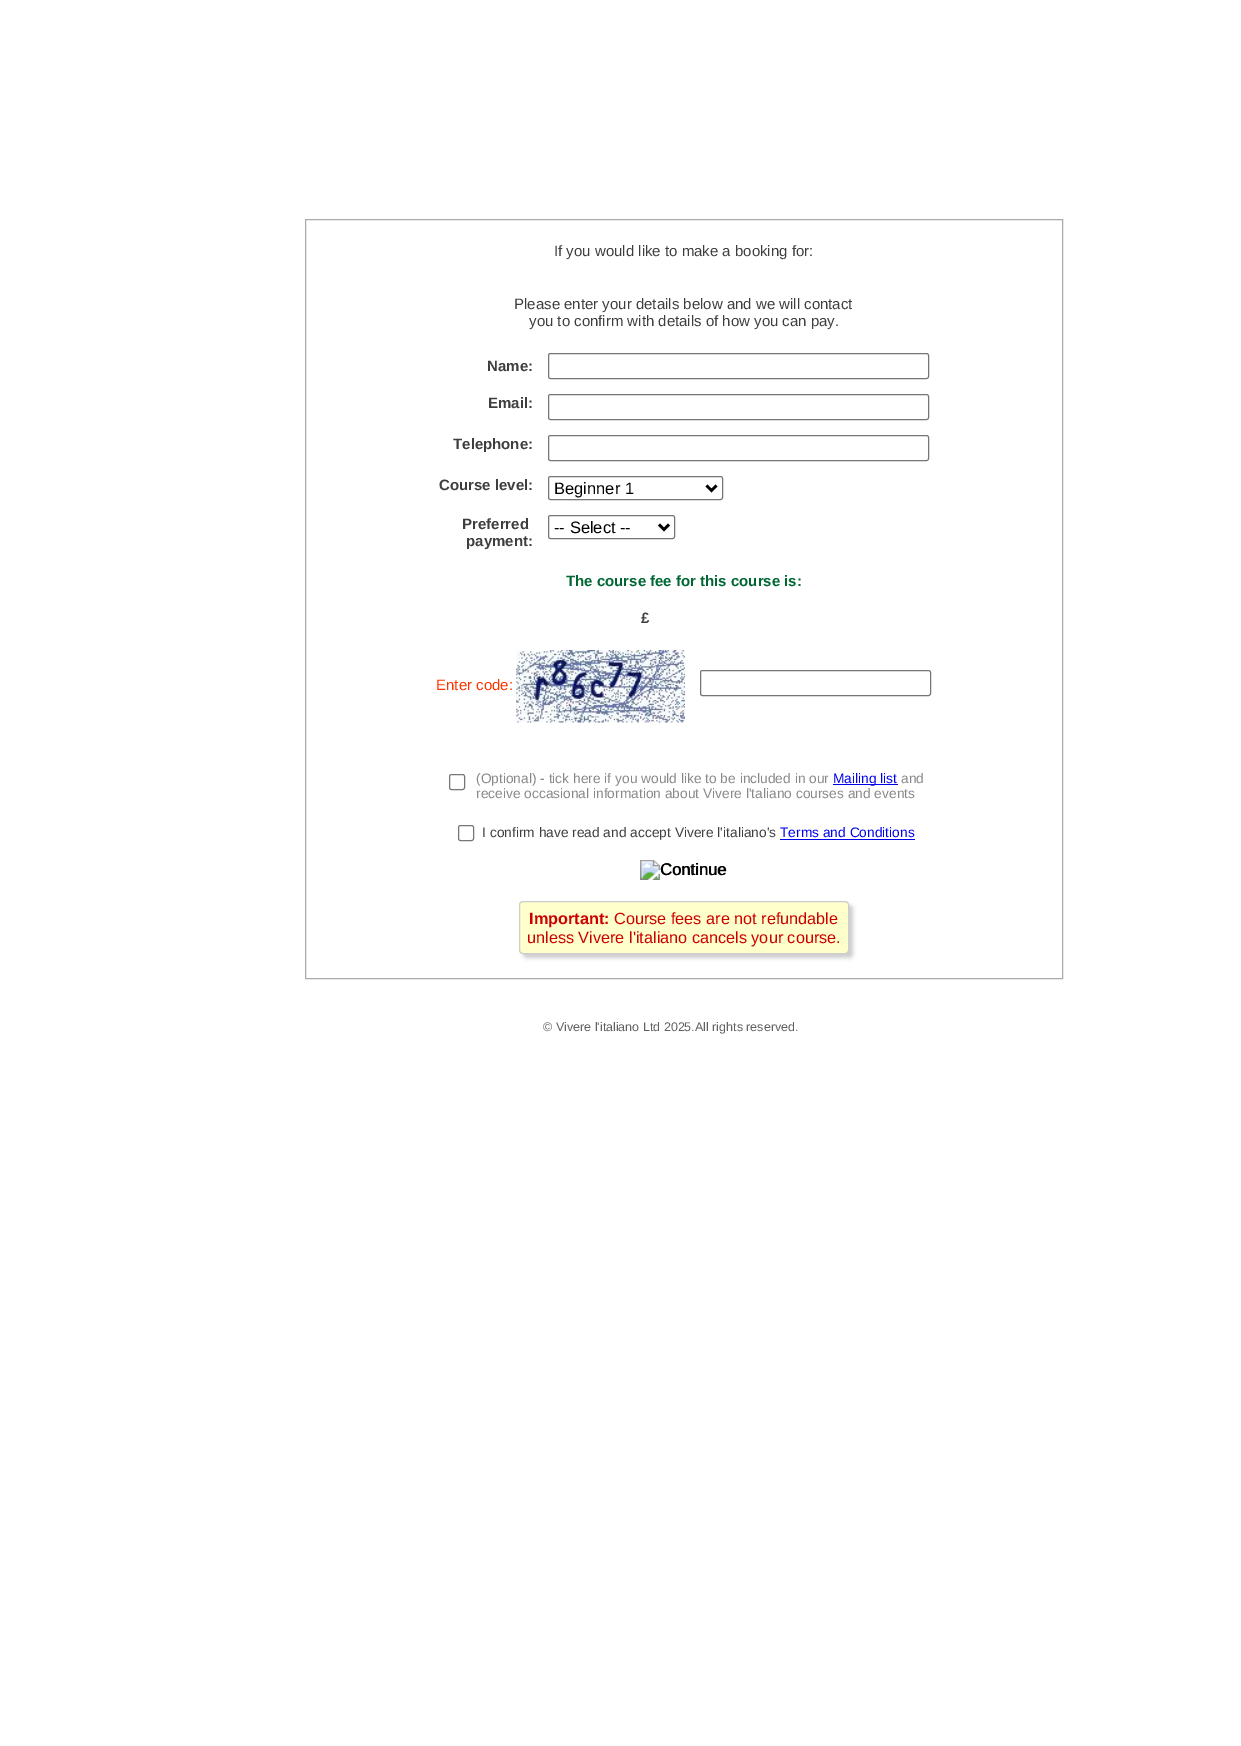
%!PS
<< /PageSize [1241 1746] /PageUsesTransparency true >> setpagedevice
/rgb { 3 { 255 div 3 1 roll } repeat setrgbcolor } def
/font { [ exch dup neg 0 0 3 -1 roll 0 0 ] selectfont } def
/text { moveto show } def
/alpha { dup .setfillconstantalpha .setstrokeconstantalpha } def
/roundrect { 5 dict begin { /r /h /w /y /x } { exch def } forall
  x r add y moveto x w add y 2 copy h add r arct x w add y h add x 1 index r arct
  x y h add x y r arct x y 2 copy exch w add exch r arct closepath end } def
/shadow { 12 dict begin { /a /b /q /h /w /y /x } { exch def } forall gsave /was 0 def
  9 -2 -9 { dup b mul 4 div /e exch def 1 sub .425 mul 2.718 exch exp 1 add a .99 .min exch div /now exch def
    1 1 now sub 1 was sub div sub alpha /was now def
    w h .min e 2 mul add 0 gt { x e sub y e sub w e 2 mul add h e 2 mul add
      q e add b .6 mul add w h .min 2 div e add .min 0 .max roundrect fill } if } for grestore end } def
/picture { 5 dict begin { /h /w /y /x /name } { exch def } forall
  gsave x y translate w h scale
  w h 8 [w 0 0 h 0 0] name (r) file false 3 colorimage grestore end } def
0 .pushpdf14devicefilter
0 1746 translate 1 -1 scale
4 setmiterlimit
255 255 255 rgb
0 0 1241 1746 rectfill
170 170 170 rgb
305.5 219.5 757 759 rectstroke
118 118 118 rgb
548.5 353.5 380 25 2 roundrect stroke
548.5 394.5 380 25 2 roundrect stroke
548.5 435.5 380 25 2 roundrect stroke
548.5 476.5 174 23 2 roundrect stroke
0 0 0 rgb
2.5 setlinewidth
706.5 485.5 moveto 5 5 rlineto 5 -5 rlineto stroke
118 118 118 rgb
1 setlinewidth
548.5 515.5 126 23 2 roundrect stroke
0 0 0 rgb
2.5 setlinewidth
659 524.5 moveto 5 5 rlineto 5 -5 rlineto stroke
(img_01.rgb) 516 650 169 73 picture
118 118 118 rgb
1 setlinewidth
700.5 670.5 230 25 2 roundrect stroke
449.5 774.5 15 15 2 roundrect stroke
0 0 238 rgb
833 784 65 1 rectfill
118 118 118 rgb
458.5 825.5 15 15 2 roundrect stroke
0 0 238 rgb
780 839 135 1 rectfill
(img_02.rgb) 640 860 87 20 picture
204 204 204 rgb
523 905 330 53 4 2 1 shadow
255 255 204 rgb
519.5 901.5 329 52 3.5 roundrect gsave fill grestore
204 204 204 rgb
stroke
/LiberationSans-Regular 15 font
62 62 62 rgb
(If you would like to make a booking for:) 554 256 text
(Please enter your details below and we will contact) 514 309 text
(you to confirm with details of how you can pay.) 529 326 text
/LiberationSans-Bold 15 font
(Name:) 487 371 text
(Email:) 488 408 text
(Telephone:) 453 449 text
(Course level:) 439 490 text
/LiberationSans-Regular 16.5 font
0 0 0 rgb
(Beginner 1) 554 494 text
/LiberationSans-Bold 15 font
62 62 62 rgb
(Preferred) 462 529 text
(payment:) 466 546 text
/LiberationSans-Regular 16.5 font
0 0 0 rgb
(-- Select --) 554 533 text
/LiberationSans-Bold 15 font
0 102 51 rgb
(The course fee for this course is:) 566 586 text
62 62 62 rgb
(£) 641 623 text
/LiberationSans-Regular 15 font
255 51 0 rgb
(Enter code:) 436 690 text
/LiberationSans-Regular 13.75 font
136 136 136 rgb
(\(Optional\) - tick here if you would like to be included in our) 476 783 text
0 0 238 rgb
(Mailing list) 833 783 text
136 136 136 rgb
(and) 901 783 text
(receive occasional information about Vivere l'taliano courses and events) 476 798 text
62 62 62 rgb
(I confirm have read and accept Vivere l'italiano's) 482 837 text
0 0 238 rgb
(Terms and Conditions) 780 837 text
/LiberationSans-Regular 16.5 font
0 0 0 rgb
(Continue) 660 875 text
/LiberationSans-Bold 16.25 font
204 0 0 rgb
(Important:) 529 924 text
/LiberationSans-Regular 16.25 font
(Course fees are not refundable) 614 924 text
(unless Vivere l'italiano cancels your course.) 527 943 text
/LiberationSans-Regular 12.5 font
97 97 97 rgb
(© Vivere l'italiano Ltd 2025.All rights reserved.) 543 1031 text
.poppdf14devicefilter showpage
